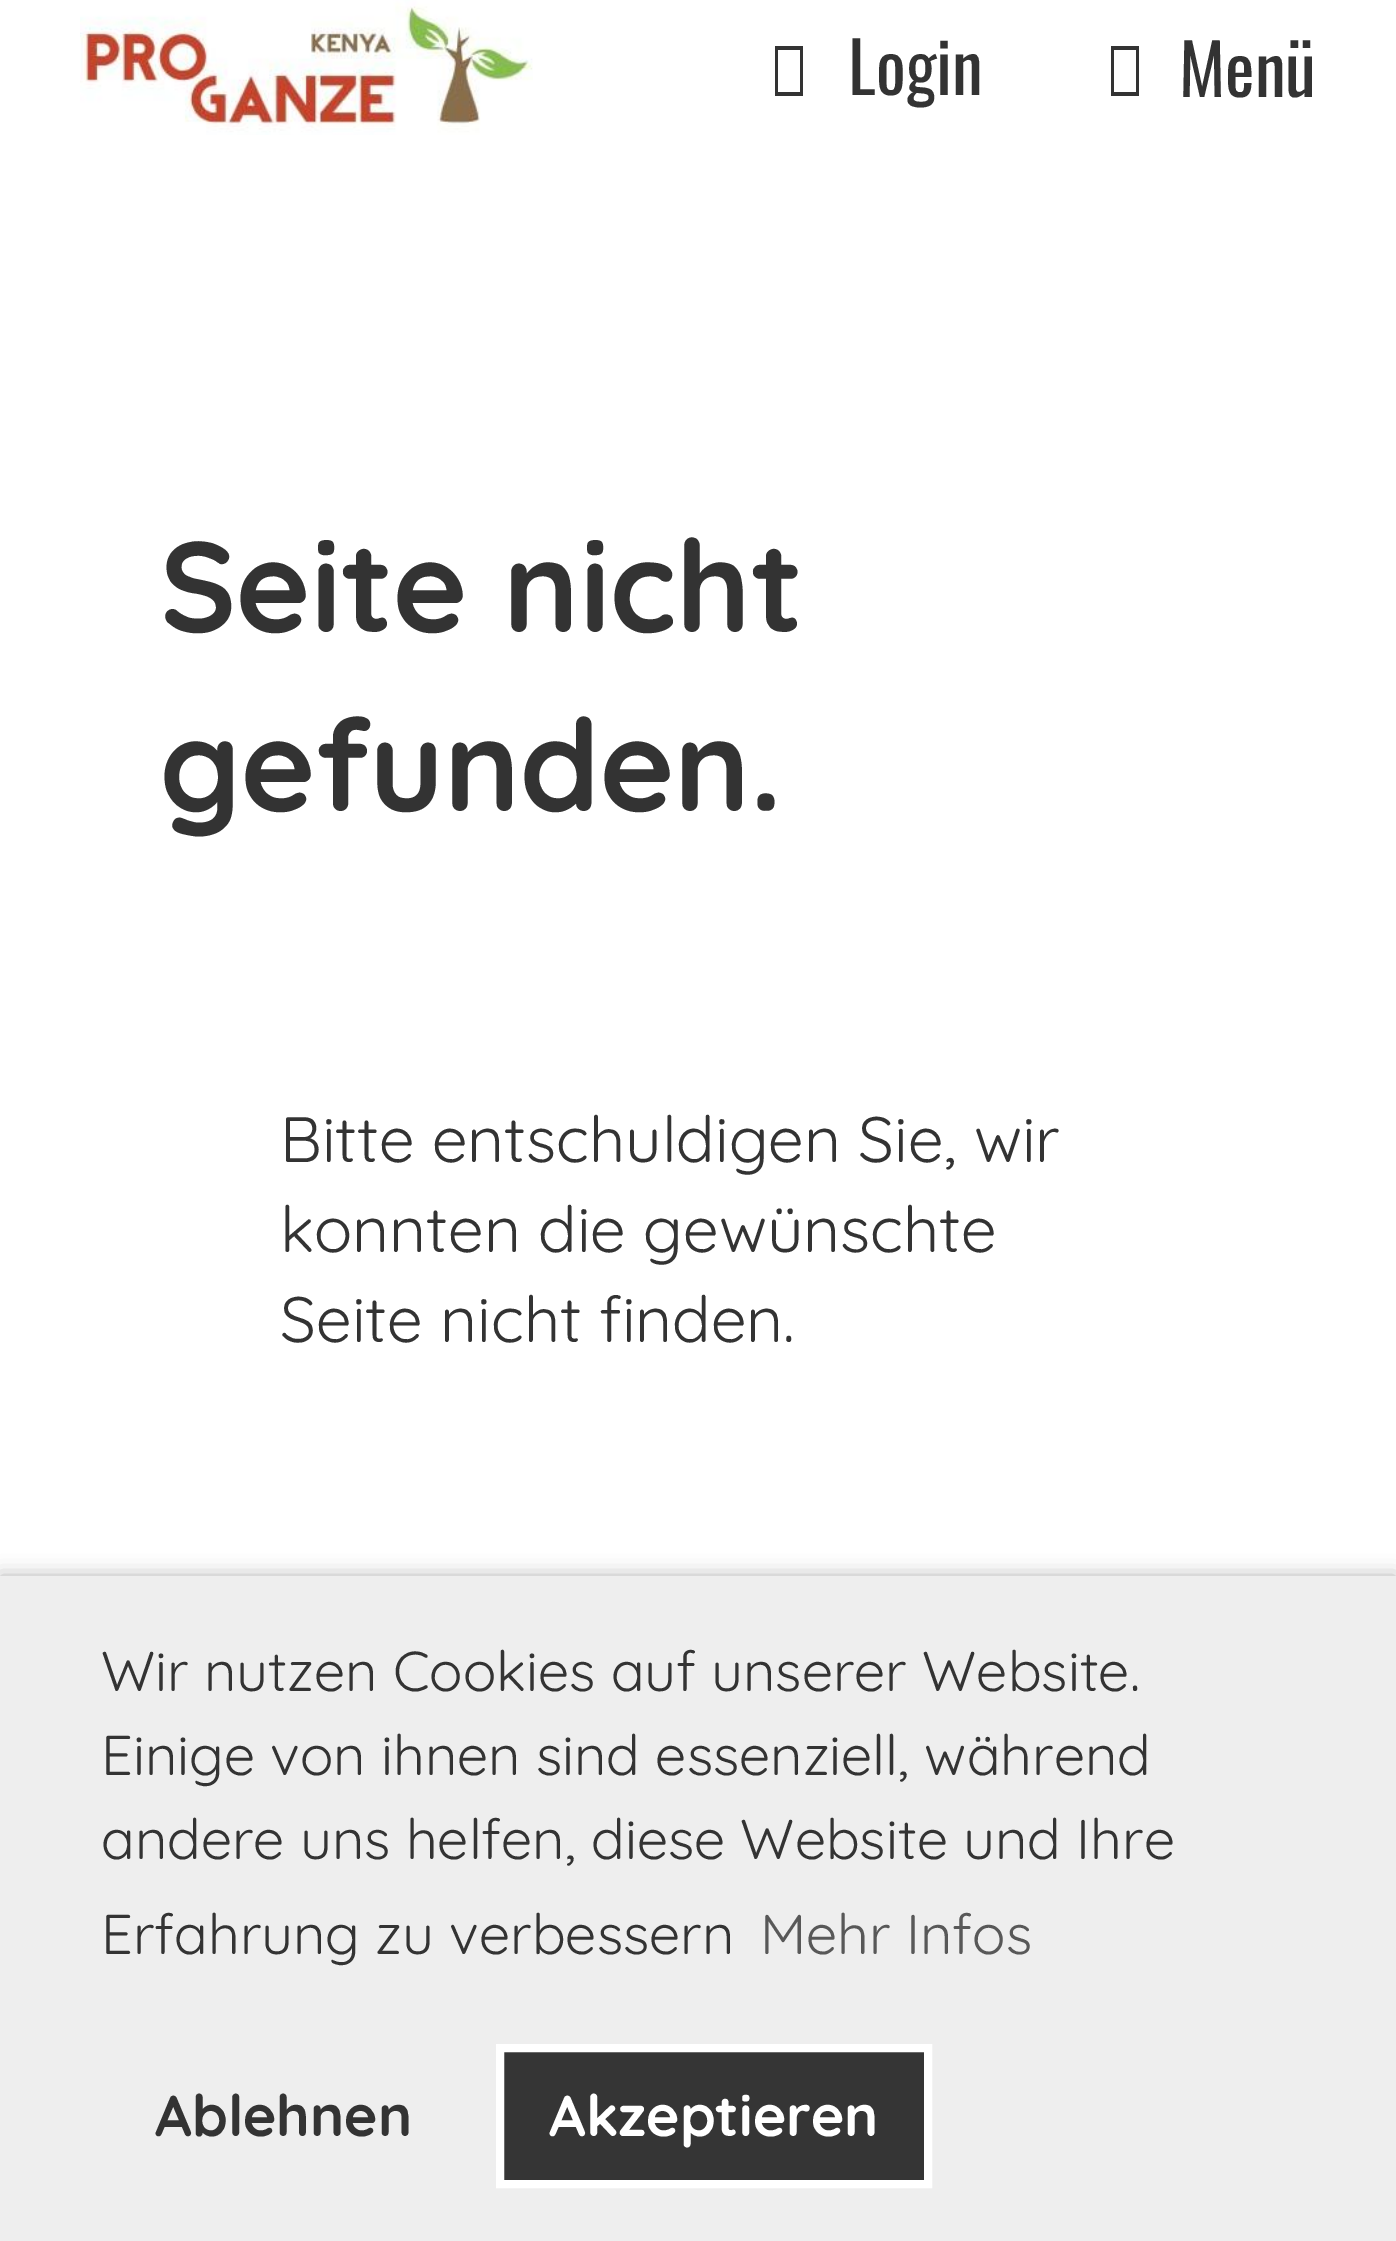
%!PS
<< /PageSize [1396 2241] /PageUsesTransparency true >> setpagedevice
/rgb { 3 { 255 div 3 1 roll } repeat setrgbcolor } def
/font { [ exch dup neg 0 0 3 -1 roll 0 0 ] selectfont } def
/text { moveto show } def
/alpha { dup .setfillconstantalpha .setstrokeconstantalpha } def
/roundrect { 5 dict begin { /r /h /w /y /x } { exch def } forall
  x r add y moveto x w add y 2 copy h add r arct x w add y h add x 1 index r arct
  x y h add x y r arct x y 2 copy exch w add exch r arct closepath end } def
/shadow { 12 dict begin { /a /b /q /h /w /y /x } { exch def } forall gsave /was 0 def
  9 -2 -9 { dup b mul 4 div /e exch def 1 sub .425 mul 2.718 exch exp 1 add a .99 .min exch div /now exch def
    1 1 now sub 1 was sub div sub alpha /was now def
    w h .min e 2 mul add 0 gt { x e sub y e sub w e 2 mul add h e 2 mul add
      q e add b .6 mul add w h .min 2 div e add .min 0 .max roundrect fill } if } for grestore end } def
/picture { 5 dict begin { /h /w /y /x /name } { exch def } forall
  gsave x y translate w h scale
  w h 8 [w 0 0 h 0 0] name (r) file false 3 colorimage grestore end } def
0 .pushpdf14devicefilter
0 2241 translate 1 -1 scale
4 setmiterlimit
255 255 255 rgb
0 0 1396 2241 rectfill
(img_01.rgb) 80 0 453 135 picture
51 51 51 rgb
775 96 moveto 0 -50 rlineto 28 0 rlineto 0 50 rlineto closepath 778 92 moveto 22 0 rlineto 0 -42 rlineto -22 0 rlineto closepath fill
1111 96 moveto 0 -50 rlineto 28 0 rlineto 0 50 rlineto closepath 1114 92 moveto 22 0 rlineto 0 -42 rlineto -22 0 rlineto closepath fill
0 0 0 rgb
0 1576 1396 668 0 10 0.3 shadow
238 238 238 rgb
0 1576 1396 665 rectfill
53 53 53 rgb
500 2048 moveto 428 0 rlineto 0 136 rlineto -428 0 rlineto closepath gsave fill grestore
255 255 255 rgb
8 setlinewidth
stroke
/Oswald-Regular 70 font
51 51 51 rgb
(Login) 848 95 text
(Menü) 1179 97 text
/Quicksand-Light 128 font
(Seite nicht) 160 632 text
(gefunden.) 160 811 text
/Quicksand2-Light 64 font
(Bitte entschuldigen Sie, wir) 280 1162 text
(konnten die gewünschte) 280 1252 text
(Seite nicht finden.) 280 1342 text
/Quicksand2-Light 56 font
(Wir nutzen Cookies auf unserer Website.) 101 1691 text
(Einige von ihnen sind essenziell, während) 101 1775 text
(andere uns helfen, diese Website und Ihre) 101 1859 text
(Erfahrung zu verbessern) 101 1954 text
88 88 88 rgb
(Mehr Infos) 760 1954 text
/Quicksand-Light 57.5 font
51 51 51 rgb
(Ablehnen) 155 2136 text
255 255 255 rgb
(Akzeptieren) 549 2136 text
.poppdf14devicefilter showpage
